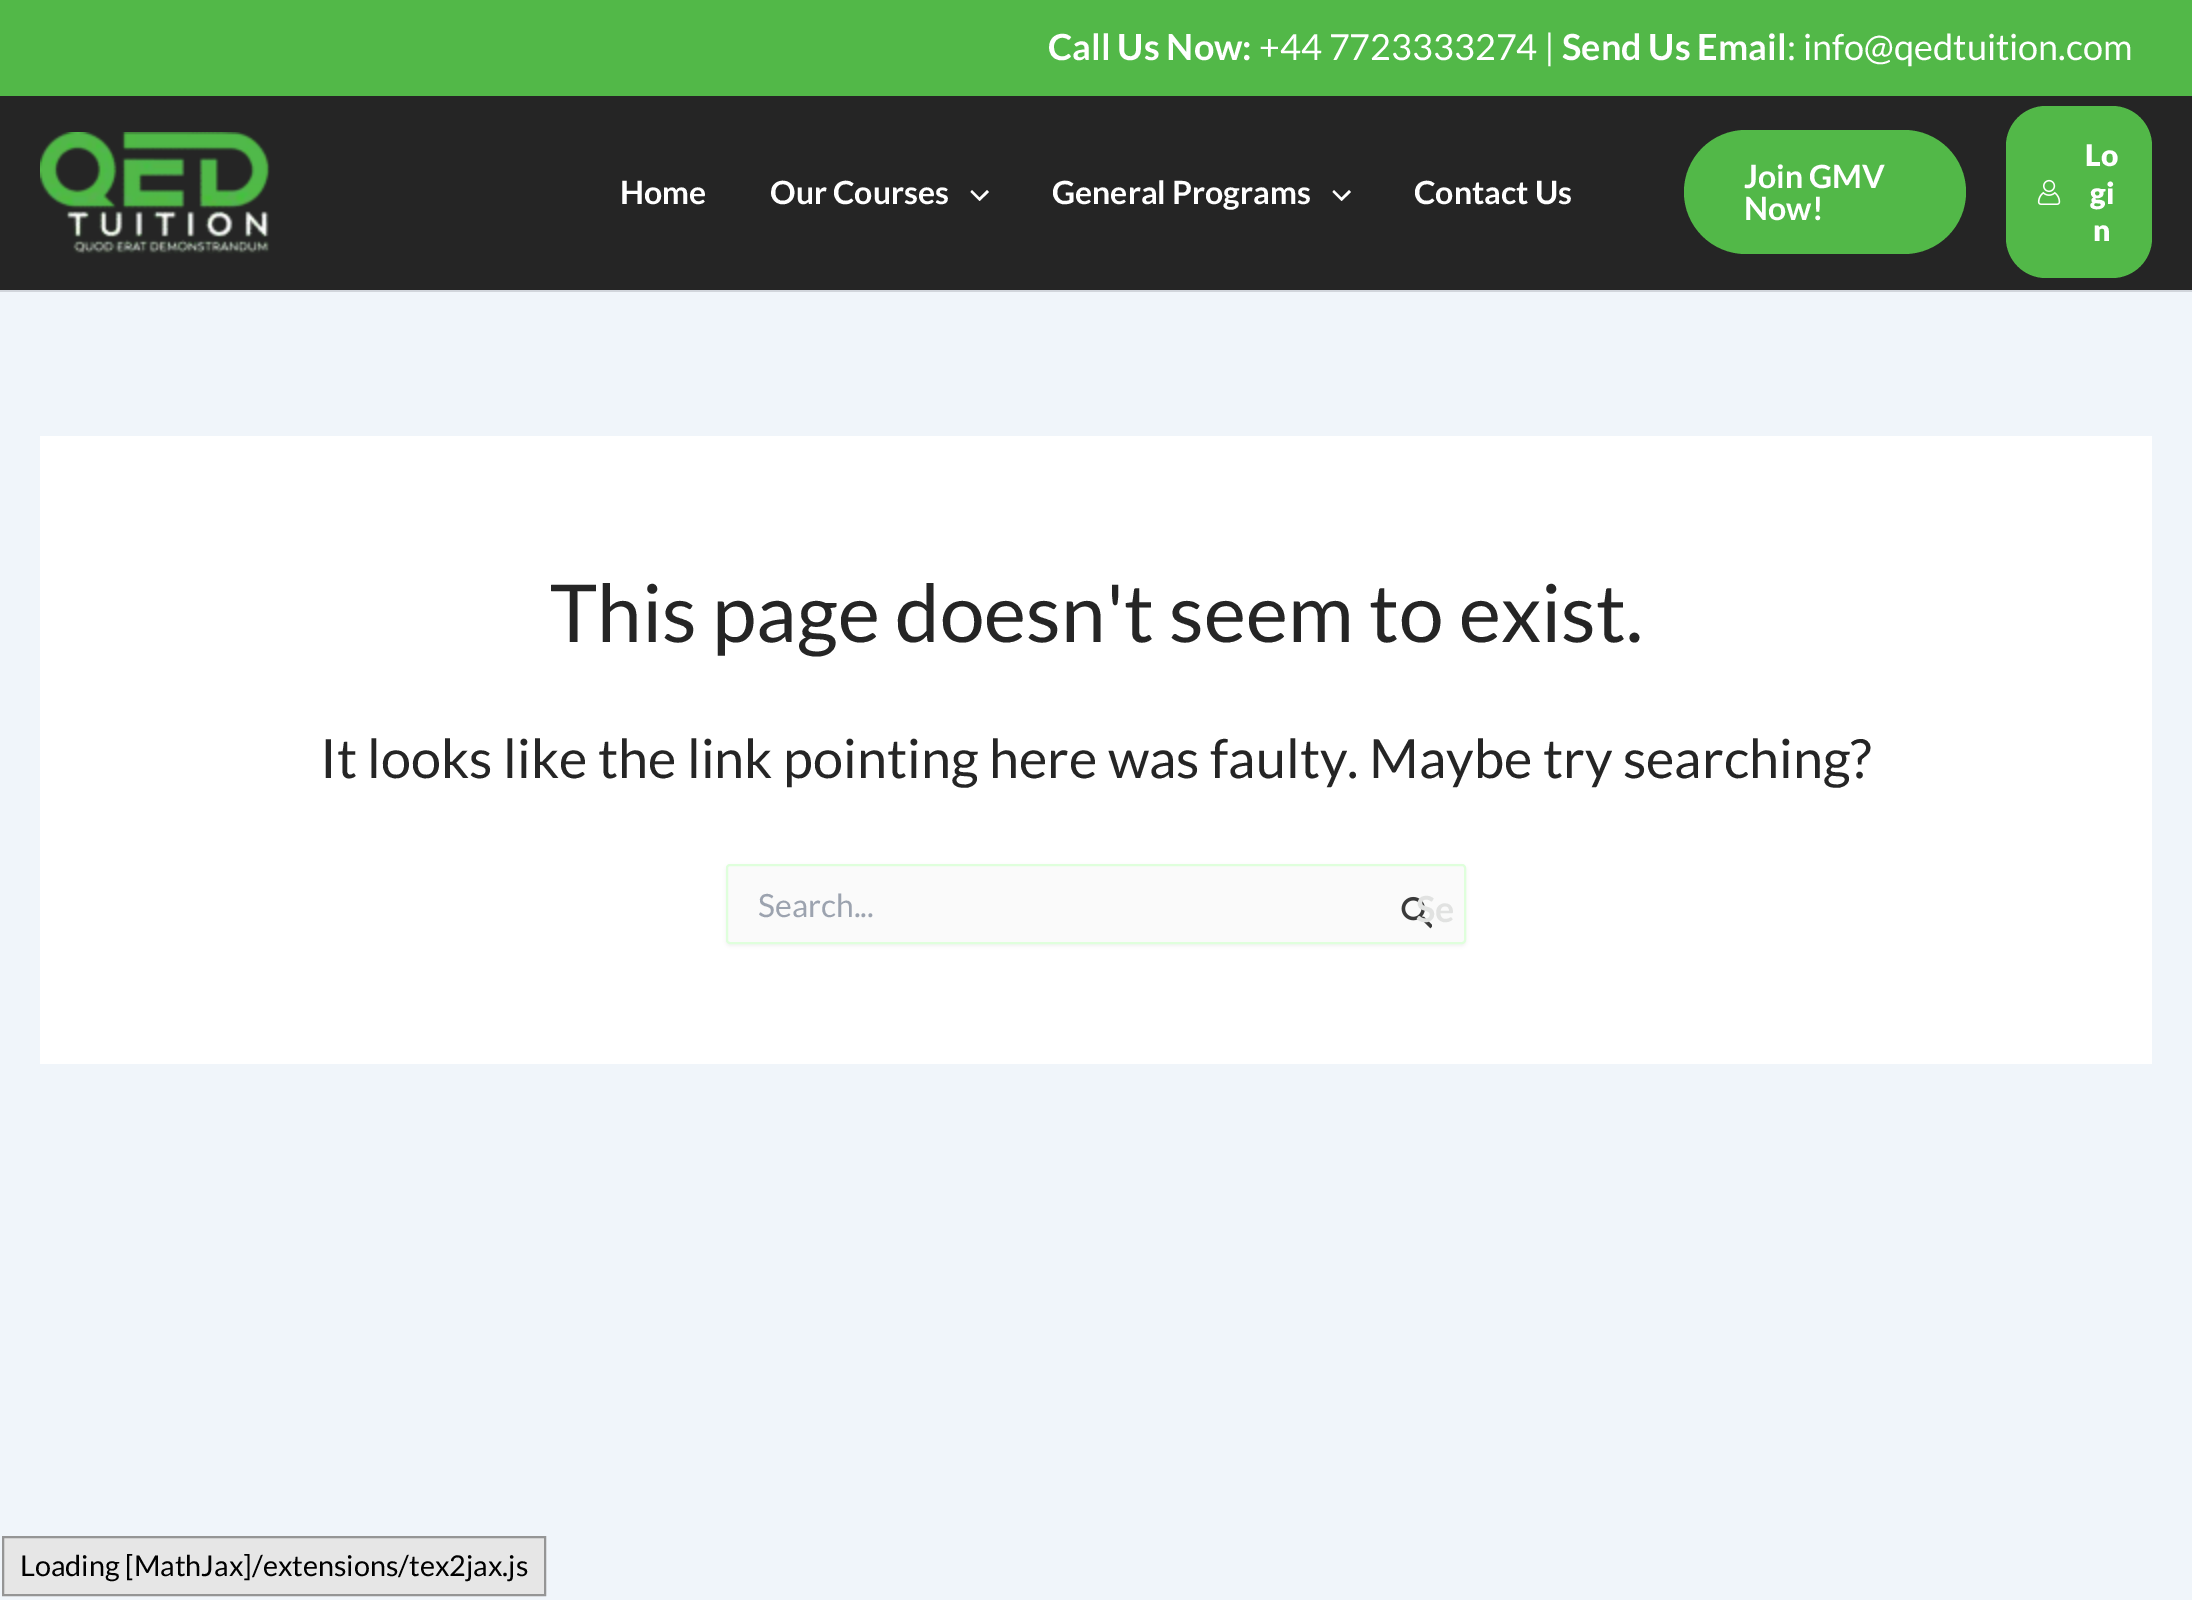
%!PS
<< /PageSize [2192 1600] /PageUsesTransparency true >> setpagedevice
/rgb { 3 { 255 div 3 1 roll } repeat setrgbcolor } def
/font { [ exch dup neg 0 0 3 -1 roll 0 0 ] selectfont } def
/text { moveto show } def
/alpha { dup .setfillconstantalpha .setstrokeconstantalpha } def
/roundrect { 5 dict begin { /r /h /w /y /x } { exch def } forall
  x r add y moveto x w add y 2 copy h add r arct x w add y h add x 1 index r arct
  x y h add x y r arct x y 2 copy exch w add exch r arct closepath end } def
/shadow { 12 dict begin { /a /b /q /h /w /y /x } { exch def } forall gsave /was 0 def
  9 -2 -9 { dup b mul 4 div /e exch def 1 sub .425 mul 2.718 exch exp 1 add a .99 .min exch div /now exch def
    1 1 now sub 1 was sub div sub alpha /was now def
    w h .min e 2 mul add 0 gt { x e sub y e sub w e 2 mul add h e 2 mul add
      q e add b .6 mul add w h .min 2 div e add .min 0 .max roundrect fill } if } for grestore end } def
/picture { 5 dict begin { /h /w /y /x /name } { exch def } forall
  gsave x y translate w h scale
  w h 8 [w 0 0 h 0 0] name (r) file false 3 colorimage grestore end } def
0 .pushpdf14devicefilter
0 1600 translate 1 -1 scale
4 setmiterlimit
240 245 250 rgb
0 0 2192 1600 rectfill
82 184 72 rgb
0 0 2192 96 rectfill
37 37 37 rgb
0 96 2192 194 rectfill
209 213 219 rgb
0 290 2192 2 rectfill
(img_01.rgb) 40 132 230 122 picture
255 255 255 rgb
970.5 192 moveto 9 9 rlineto 9.5 -9 rlineto -2 -2 rlineto -7.5 7.5 rlineto -7.5 -7.5 rlineto closepath fill
1332.5 192 moveto 9 9 rlineto 9.5 -9 rlineto -2 -2 rlineto -7.5 7.5 rlineto -7.5 -7.5 rlineto closepath fill
82 184 72 rgb
1684 130 282 124 62 roundrect fill
2006 106 146 172 40 roundrect fill
(img_02.rgb) 2037 179 24 26 picture
255 255 255 rgb
40 436 2112 628 rectfill
0 0 0 rgb
726 866 740 80 4 2 0.05 shadow
250 250 250 rgb
727 865 738 78 3 roundrect gsave fill grestore
223 255 220 rgb
2 setlinewidth
stroke
(img_03.rgb) 1401 896 31 33 picture
230 230 230 rgb
3 1537 moveto 542 0 rlineto 0 58 rlineto -542 0 rlineto closepath gsave fill grestore
149 149 149 rgb
stroke
/Lato-Bold 36 font
255 255 255 rgb
(Call Us Now:) 1048 60 text
/Lato-Regular 36 font
(+44 7723333274 |) 1259 60 text
/Lato-Bold 36 font
(Send Us Email) 1562 60 text
/Lato-Regular 36 font
(: info@qedtuition.com) 1787 60 text
/Lato-Bold 32 font
(Home) 620 204 text
(Our Courses) 770 204 text
(General Programs) 1052 204 text
(Contact Us) 1414 204 text
(Join GMV) 1744 188 text
(Now!) 1744 220 text
/Lato-Black 30 font
(Lo) 2085 166 text
(gi) 2090 204 text
(n) 2093 241 text
/Lato-Regular 80 font
37 37 37 rgb
(This page doesn't seem to exist.) 550 642 text
/Lato-Regular 54 font
(It looks like the link pointing here was faulty. Maybe try searching?) 320 778 text
/Lato-Regular 32 font
156 163 175 rgb
(Search...) 758 917 text
/Lato-Bold 36 font
225 226 225 rgb
(Se) 1416 922 text
/Lato-Regular 28.75 font
0 0 0 rgb
(Loading [MathJax]/extensions/tex2jax.js) 20 1576 text
.poppdf14devicefilter showpage
